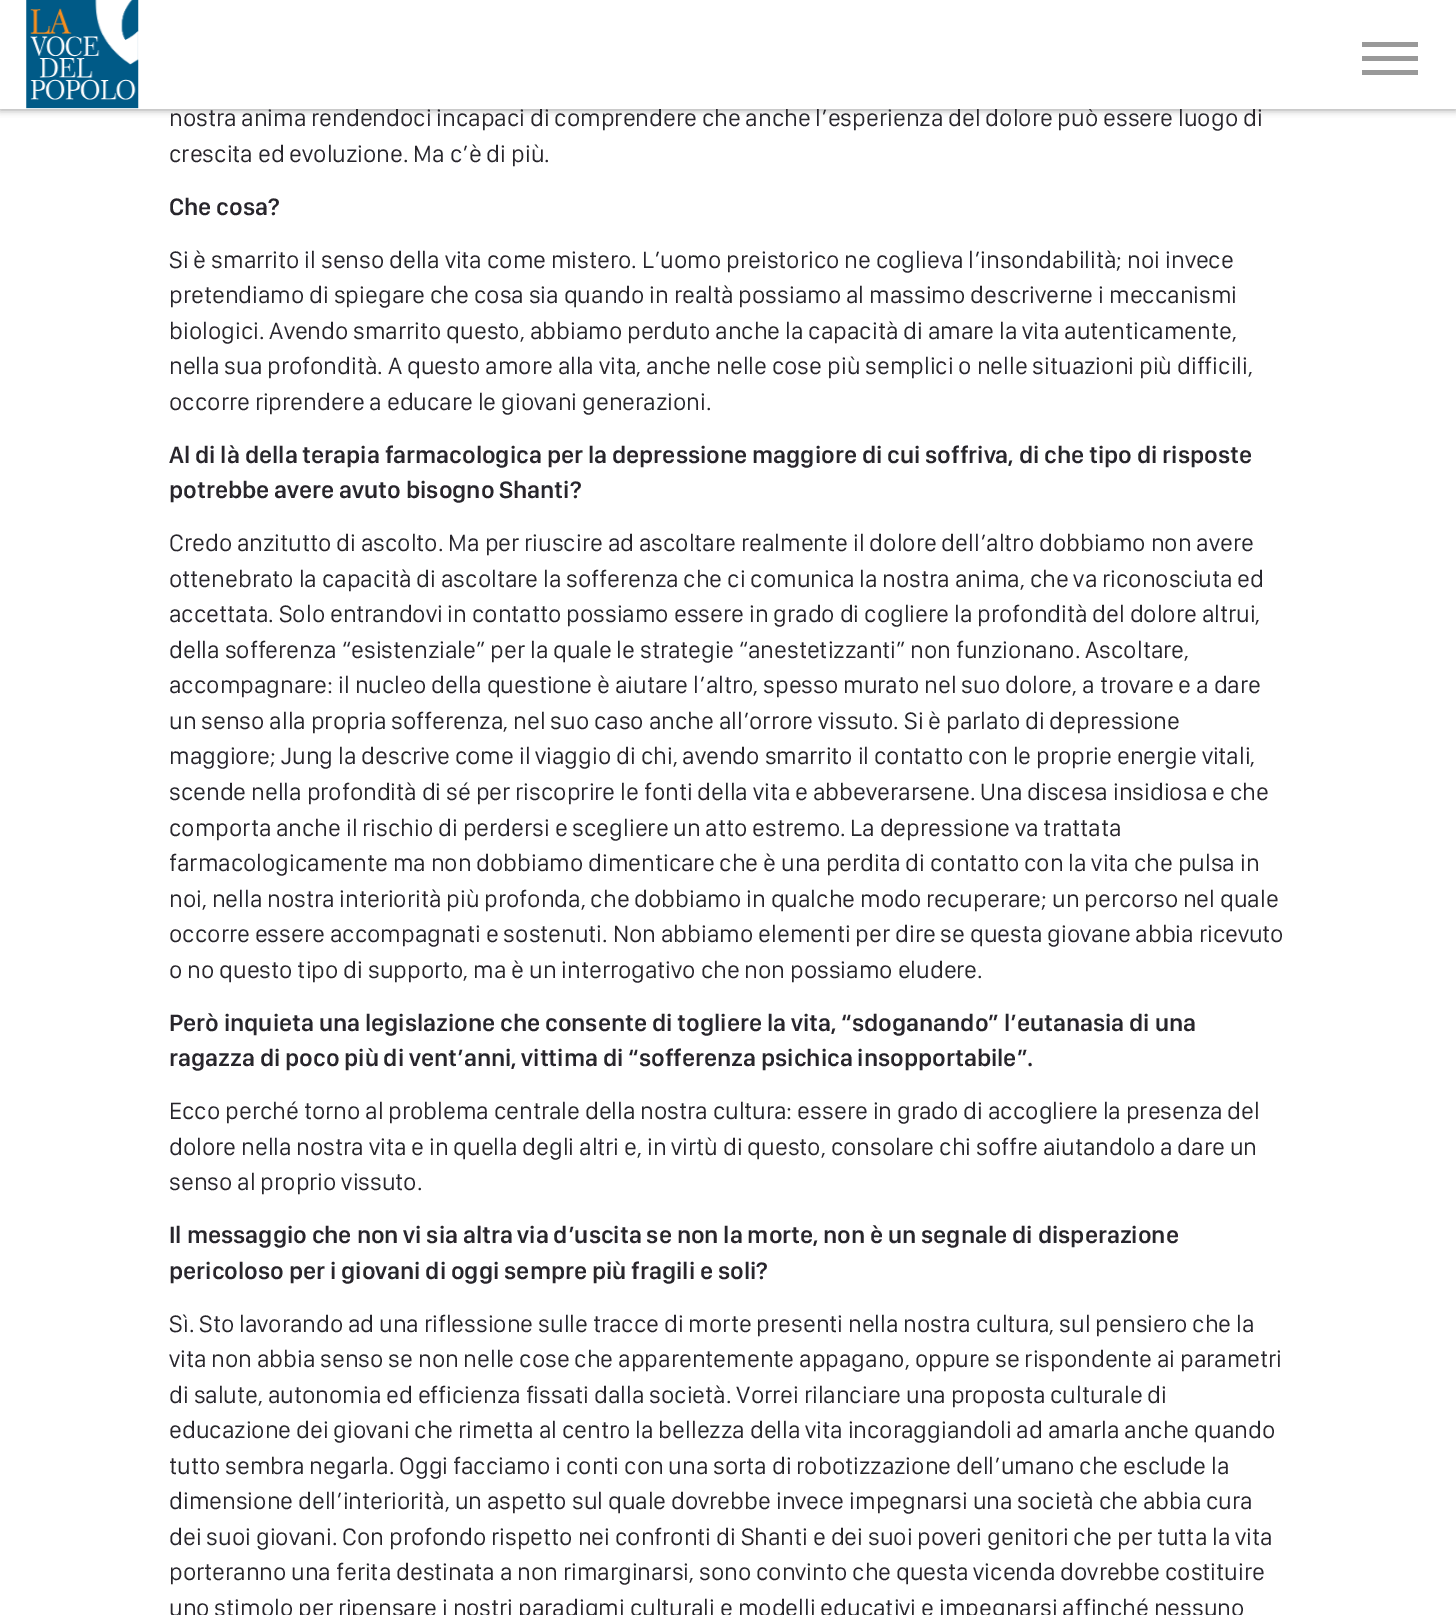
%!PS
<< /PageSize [1456 1615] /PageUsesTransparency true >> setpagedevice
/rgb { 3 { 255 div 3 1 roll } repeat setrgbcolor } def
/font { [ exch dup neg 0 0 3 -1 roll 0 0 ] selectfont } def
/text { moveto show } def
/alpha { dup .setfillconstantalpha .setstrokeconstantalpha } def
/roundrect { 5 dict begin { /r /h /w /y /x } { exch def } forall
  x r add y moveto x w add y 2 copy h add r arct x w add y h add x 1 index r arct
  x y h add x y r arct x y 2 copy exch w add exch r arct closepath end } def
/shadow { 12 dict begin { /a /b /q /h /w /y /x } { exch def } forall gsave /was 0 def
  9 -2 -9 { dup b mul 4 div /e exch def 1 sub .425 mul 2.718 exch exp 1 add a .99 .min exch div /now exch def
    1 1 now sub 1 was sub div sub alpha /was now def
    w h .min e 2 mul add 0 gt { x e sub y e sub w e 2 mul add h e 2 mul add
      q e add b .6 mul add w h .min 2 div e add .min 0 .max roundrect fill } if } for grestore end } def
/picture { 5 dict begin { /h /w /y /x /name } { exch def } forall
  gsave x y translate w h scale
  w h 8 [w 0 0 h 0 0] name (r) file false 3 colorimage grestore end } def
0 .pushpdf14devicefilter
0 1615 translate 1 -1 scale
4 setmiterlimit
255 255 255 rgb
0 0 1456 1615 rectfill
0 0 0 rgb
0 2 1456 108 0 3.5 0.37 shadow
/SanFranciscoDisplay-Regular 24.5 font
40 38 44 rgb
(nostra anima rendendoci incapaci di comprendere che anche l’esperienza del dolore può essere luogo di) 169 126 text
255 255 255 rgb
0 0 1456 109 rectfill
153 153 153 rgb
1362 70 56 5 rectfill
1362 56 56 5 rectfill
1362 42 56 5 rectfill
(img_01.rgb) 26 0 113 109 picture
40 38 44 rgb
(crescita ed evoluzione. Ma c’è di più.) 169 162 text
/SanFranciscoDisplay-SemiBold 24.5 font
(Che cosa?) 169 215 text
/SanFranciscoDisplay-Regular 24.5 font
(Si è smarrito il senso della vita come mistero. L’uomo preistorico ne coglieva l’insondabilità; noi invece) 169 268 text
(pretendiamo di spiegare che cosa sia quando in realtà possiamo al massimo descriverne i meccanismi) 169 303 text
(biologici. Avendo smarrito questo, abbiamo perduto anche la capacità di amare la vita autenticamente,) 169 339 text
(nella sua profondità. A questo amore alla vita, anche nelle cose più semplici o nelle situazioni più difficili,) 169 374 text
(occorre riprendere a educare le giovani generazioni.) 169 410 text
/SanFranciscoDisplay-SemiBold 24.5 font
(Al di là della terapia farmacologica per la depressione maggiore di cui soffriva, di che tipo di risposte) 169 463 text
(potrebbe avere avuto bisogno Shanti?) 169 498 text
/SanFranciscoDisplay-Regular 24.5 font
(Credo anzitutto di ascolto. Ma per riuscire ad ascoltare realmente il dolore dell’altro dobbiamo non avere) 169 551 text
(ottenebrato la capacità di ascoltare la sofferenza che ci comunica la nostra anima, che va riconosciuta ed) 169 587 text
(accettata. Solo entrandovi in contatto possiamo essere in grado di cogliere la profondità del dolore altrui,) 169 622 text
(della sofferenza “esistenziale” per la quale le strategie “anestetizzanti” non funzionano. Ascoltare,) 169 658 text
(accompagnare: il nucleo della questione è aiutare l’altro, spesso murato nel suo dolore, a trovare e a dare) 169 693 text
(un senso alla propria sofferenza, nel suo caso anche all’orrore vissuto. Si è parlato di depressione) 169 729 text
(maggiore; Jung la descrive come il viaggio di chi, avendo smarrito il contatto con le proprie energie vitali,) 169 764 text
(scende nella profondità di sé per riscoprire le fonti della vita e abbeverarsene. Una discesa insidiosa e che) 169 800 text
(comporta anche il rischio di perdersi e scegliere un atto estremo. La depressione va trattata) 169 836 text
(farmacologicamente ma non dobbiamo dimenticare che è una perdita di contatto con la vita che pulsa in) 169 871 text
(noi, nella nostra interiorità più profonda, che dobbiamo in qualche modo recuperare; un percorso nel quale) 169 907 text
(occorre essere accompagnati e sostenuti. Non abbiamo elementi per dire se questa giovane abbia ricevuto) 169 942 text
(o no questo tipo di supporto, ma è un interrogativo che non possiamo eludere.) 169 978 text
/SanFranciscoDisplay-SemiBold 24.5 font
(Però inquieta una legislazione che consente di togliere la vita, “sdoganando” l’eutanasia di una) 169 1031 text
(ragazza di poco più di vent’anni, vittima di “sofferenza psichica insopportabile”.) 169 1066 text
/SanFranciscoDisplay-Regular 24.5 font
(Ecco perché torno al problema centrale della nostra cultura: essere in grado di accogliere la presenza del) 169 1119 text
(dolore nella nostra vita e in quella degli altri e, in virtù di questo, consolare chi soffre aiutandolo a dare un) 169 1155 text
(senso al proprio vissuto.) 169 1190 text
/SanFranciscoDisplay-SemiBold 24.5 font
(Il messaggio che non vi sia altra via d’uscita se non la morte, non è un segnale di disperazione) 169 1243 text
(pericoloso per i giovani di oggi sempre più fragili e soli?) 169 1279 text
/SanFranciscoDisplay-Regular 24.5 font
(Sì. Sto lavorando ad una riflessione sulle tracce di morte presenti nella nostra cultura, sul pensiero che la) 169 1332 text
(vita non abbia senso se non nelle cose che apparentemente appagano, oppure se rispondente ai parametri) 169 1367 text
(di salute, autonomia ed efficienza fissati dalla società. Vorrei rilanciare una proposta culturale di) 169 1403 text
(educazione dei giovani che rimetta al centro la bellezza della vita incoraggiandoli ad amarla anche quando) 169 1438 text
(tutto sembra negarla. Oggi facciamo i conti con una sorta di robotizzazione dell’umano che esclude la) 169 1474 text
(dimensione dell’interiorità, un aspetto sul quale dovrebbe invece impegnarsi una società che abbia cura) 169 1509 text
(dei suoi giovani. Con profondo rispetto nei confronti di Shanti e dei suoi poveri genitori che per tutta la vita) 169 1545 text
(porteranno una ferita destinata a non rimarginarsi, sono convinto che questa vicenda dovrebbe costituire) 169 1580 text
(uno stimolo per ripensare i nostri paradigmi culturali e modelli educativi e impegnarsi affinché nessuno) 169 1616 text
.poppdf14devicefilter showpage
